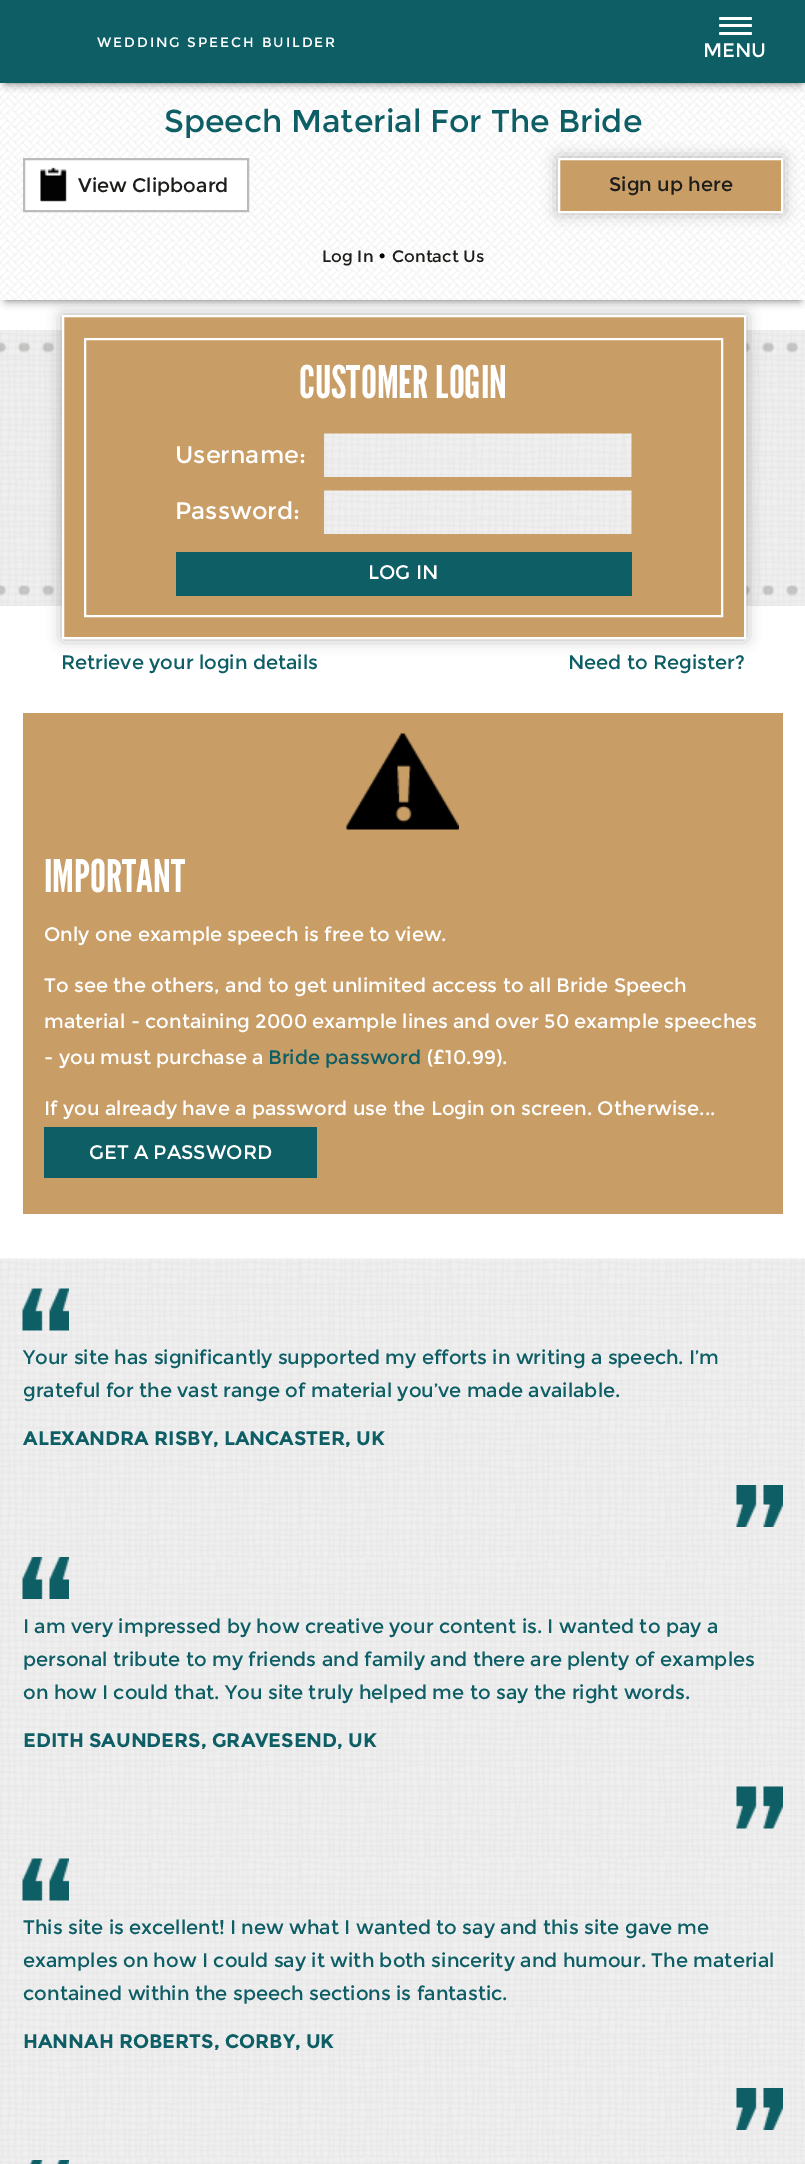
%!PS
<< /PageSize [805 2164] /PageUsesTransparency true >> setpagedevice
/rgb { 3 { 255 div 3 1 roll } repeat setrgbcolor } def
/font { [ exch dup neg 0 0 3 -1 roll 0 0 ] selectfont } def
/text { moveto show } def
/alpha { dup .setfillconstantalpha .setstrokeconstantalpha } def
/roundrect { 5 dict begin { /r /h /w /y /x } { exch def } forall
  x r add y moveto x w add y 2 copy h add r arct x w add y h add x 1 index r arct
  x y h add x y r arct x y 2 copy exch w add exch r arct closepath end } def
/shadow { 12 dict begin { /a /b /q /h /w /y /x } { exch def } forall gsave /was 0 def
  9 -2 -9 { dup b mul 4 div /e exch def 1 sub .425 mul 2.718 exch exp 1 add a .99 .min exch div /now exch def
    1 1 now sub 1 was sub div sub alpha /was now def
    w h .min e 2 mul add 0 gt { x e sub y e sub w e 2 mul add h e 2 mul add
      q e add b .6 mul add w h .min 2 div e add .min 0 .max roundrect fill } if } for grestore end } def
/picture { 5 dict begin { /h /w /y /x /name } { exch def } forall
  gsave x y translate w h scale
  w h 8 [w 0 0 h 0 0] name (r) file false 3 colorimage grestore end } def
0 .pushpdf14devicefilter
0 2164 translate 1 -1 scale
4 setmiterlimit
255 255 255 rgb
0 0 805 2164 rectfill
0 0 0 rgb
6 87 794 213 0 4.5 0.6 shadow
(img_01.rgb) 0 83 805 217 picture
6 12 794 71 0 4.5 0.6 shadow
14 94 102 rgb
0 0 805 83 rectfill
255 255 255 rgb
719 17 33 3 1.5 roundrect fill
719 24 33 3 1.5 roundrect fill
719 32 33 3 1.5 roundrect fill
24 159 moveto 224 0 rlineto 0 52 rlineto -224 0 rlineto closepath gsave fill grestore
187 187 187 rgb
2 setlinewidth
stroke
(img_02.rgb) 40 167 27 35 picture
0 0 0 rgb
558 158 225 55 0 7.5 0.3 shadow
201 157 102 rgb
559 159 moveto 223 0 rlineto 0 53 rlineto -223 0 rlineto closepath gsave fill grestore
255 255 255 rgb
stroke
(img_03.rgb) 0 330 805 276 picture
(img_04.rgb) 0 342 799 11 picture
(img_05.rgb) 0 585 799 11 picture
0 0 0 rgb
62 315 684 324 0 7.5 0.3 shadow
201 157 102 rgb
63 316 moveto 682 0 rlineto 0 322 rlineto -682 0 rlineto closepath gsave fill grestore
255 255 255 rgb
stroke
85 339 637 277 rectstroke
(img_06.rgb) 324 433 308 44 picture
(img_07.rgb) 324 490 308 44 picture
14 94 102 rgb
176 552 456 44 rectfill
201 157 102 rgb
23 713 760 501 rectfill
(img_08.rgb) 346 733 113 97 picture
14 94 102 rgb
44 1127 273 51 rectfill
(img_09.rgb) 0 1258 805 906 picture
(img_10.rgb) 22 1288 47 43 picture
(img_11.rgb) 736 1485 47 42 picture
(img_12.rgb) 22 1557 47 42 picture
(img_13.rgb) 736 1786 47 43 picture
(img_14.rgb) 22 1858 47 43 picture
(img_15.rgb) 736 2088 47 42 picture
(img_16.rgb) 29 2160 40 4 picture
/Montserrat-Regular 13.75 font
255 255 255 rgb
97 47 moveto 1.95 0 (WEDDING SPEECH BUILDER) ashow
/Montserrat-Regular 19.5 font
(MENU) 703 57 text
/Montserrat-Regular 31.5 font
14 94 102 rgb
(Speech Material For The Bride) 164 132 text
/Montserrat-Regular 19.5 font
29 29 27 rgb
(View Clipboard) 78 192 text
(Sign up here) 609 191 text
/Montserrat-Regular 16.5 font
(Log In) 322 262 text
/Montserrat-Regular 19.5 font
0 0 0 rgb
(•) 378 262 text
/Montserrat-Regular 16.5 font
29 29 27 rgb
(Contact Us) 392 262 text
/LeagueGothic-Regular 45 font
255 255 255 rgb
(CUSTOMER LOGIN) 299 398 text
/Montserrat-Regular 24 font
(Username:) 175 463 text
(Password:) 175 519 text
/Montserrat-Regular 19.5 font
(LOG IN) 368 579 text
14 94 102 rgb
(Retrieve your login details) 61 669 text
(Need to Register?) 568 669 text
/LeagueGothic-Regular 45 font
255 255 255 rgb
(IMPORTANT) 44 892 text
/Montserrat-Regular 19.5 font
(Only one example speech is free to view.) 44 941 text
(To see the others, and to get unlimited access to all Bride Speech) 44 992 text
(material - containing 2000 example lines and over 50 example speeches) 44 1028 text
(- you must purchase a) 44 1064 text
14 94 102 rgb
(Bride password) 268 1064 text
255 255 255 rgb
(\(£10.99\).) 427 1064 text
(If you already have a password use the Login on screen. Otherwise...) 44 1115 text
(GET A PASSWORD) 89 1159 text
14 94 102 rgb
(Your site has significantly supported my efforts in writing a speech. I’m) 23 1364 text
(grateful for the vast range of material you’ve made available.) 23 1397 text
/Montserrat-Bold 19.5 font
(ALEXANDRA RISBY, LANCASTER, UK) 23 1445 text
/Montserrat-Regular 19.5 font
(I am very impressed by how creative your content is. I wanted to pay a) 23 1633 text
(personal tribute to my friends and family and there are plenty of examples) 23 1666 text
(on how I could that. You site truly helped me to say the right words.) 23 1699 text
/Montserrat-Bold 19.5 font
(EDITH SAUNDERS, GRAVESEND, UK) 23 1747 text
/Montserrat-Regular 19.5 font
(This site is excellent! I new what I wanted to say and this site gave me) 23 1934 text
(examples on how I could say it with both sincerity and humour. The material) 23 1967 text
(contained within the speech sections is fantastic.) 23 2000 text
/Montserrat-Bold 19.5 font
(HANNAH ROBERTS, CORBY, UK) 23 2048 text
.poppdf14devicefilter showpage
